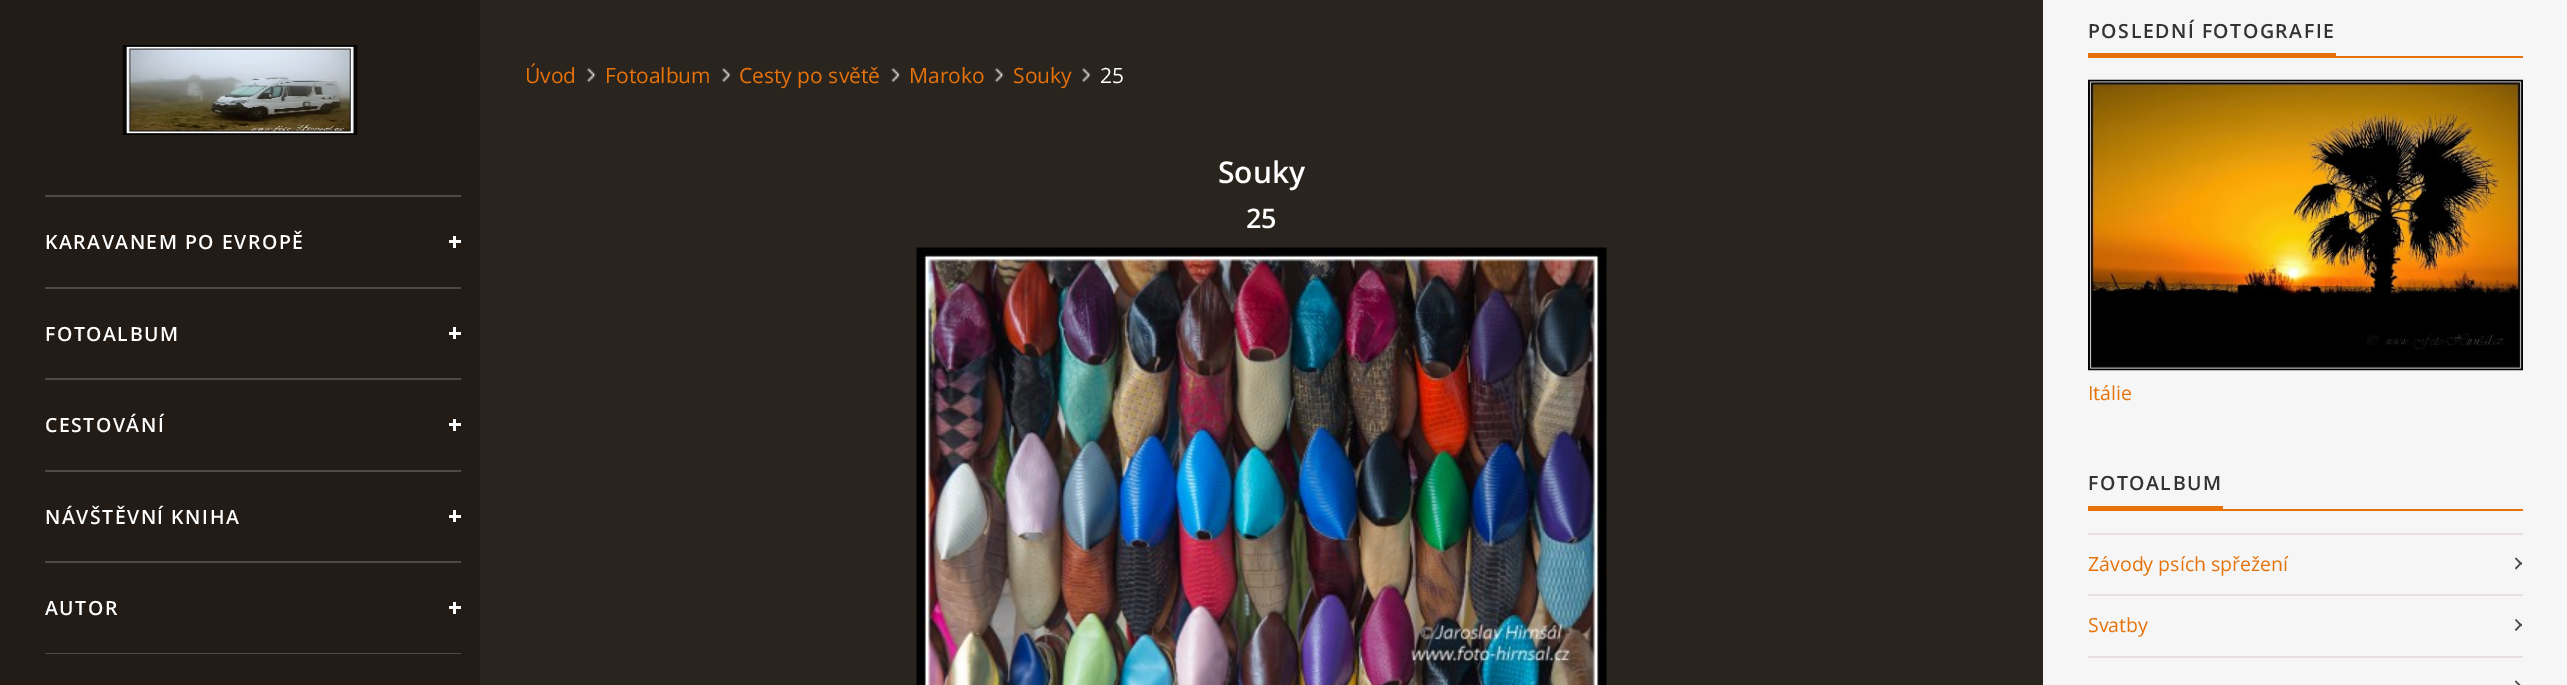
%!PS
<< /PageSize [2567 685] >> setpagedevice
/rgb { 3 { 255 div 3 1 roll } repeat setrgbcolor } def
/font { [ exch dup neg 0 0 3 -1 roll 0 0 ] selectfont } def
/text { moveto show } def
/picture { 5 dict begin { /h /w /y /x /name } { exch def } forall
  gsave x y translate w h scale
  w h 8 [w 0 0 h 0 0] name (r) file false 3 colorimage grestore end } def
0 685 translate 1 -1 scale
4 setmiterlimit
41 36 30 rgb
0 0 2567 685 rectfill
34 27 22 rgb
0 0 480 685 rectfill
(img_01.rgb) 122 45 236 90 picture
78 73 69 rgb
45 195 416 2 rectfill
255 255 255 rgb
449 240 12 3 rectfill
453 236 3 12 rectfill
78 73 69 rgb
45 287 416 2 rectfill
255 255 255 rgb
449 332 12 3 rectfill
453 327 3 12 rectfill
78 73 69 rgb
45 378 416 2 rectfill
255 255 255 rgb
449 423 12 3 rectfill
453 419 3 12 rectfill
78 73 69 rgb
45 470 416 2 rectfill
255 255 255 rgb
449 515 12 3 rectfill
453 510 3 12 rectfill
78 73 69 rgb
45 561 416 2 rectfill
45 653 416 1 rectfill
255 255 255 rgb
449 606 12 3 rectfill
453 602 3 12 rectfill
(img_02.rgb) 586 67 10 16 picture
(img_02.rgb) 721 67 10 16 picture
(img_03.rgb) 891 67 9 16 picture
(img_04.rgb) 994 67 10 16 picture
(img_04.rgb) 1081 67 10 16 picture
(img_05.rgb) 916 247 691 438 picture
246 246 246 rgb
2043 0 524 685 rectfill
230 114 9 rgb
2088 53 248 3 rectfill
2088 56 435 2 rectfill
(img_06.rgb) 2088 79 435 292 picture
2088 506 135 3 rectfill
2088 509 435 2 rectfill
232 223 223 rgb
2088 533 435 2 rectfill
2088 594 435 2 rectfill
72 72 72 rgb
2516 557.5 moveto 6 6 rlineto -1 1.5 rlineto -6 -6.5 rlineto closepath fill
2515 568 moveto 6 -6 rlineto 1 1 rlineto -6 6.5 rlineto closepath fill
232 223 223 rgb
2088 656 435 2 rectfill
72 72 72 rgb
2516 619 moveto 6 6 rlineto -1 1.5 rlineto -6 -6.5 rlineto closepath fill
2515 629.5 moveto 6 -6 rlineto 1 1 rlineto -6 6.5 rlineto closepath 2516 680.5 moveto 6 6 rlineto -1 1.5 rlineto -6 -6.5 rlineto closepath fill
/OpenSans-SemiBold 19.5 font
255 255 255 rgb
45 249 moveto 1.5 0 (KARAVANEM PO EVROPĚ) ashow
45 341 moveto 1.5 0 (FOTOALBUM) ashow
45 432 moveto 1.5 0 (CESTOVÁNÍ) ashow
45 524 moveto 1.5 0 (NÁVŠTĚVNÍ KNIHA) ashow
45 615 moveto 1.5 0 (AUTOR) ashow
/OpenSans-Regular 21 font
230 114 9 rgb
(Úvod) 525 83 text
(Fotoalbum) 605 83 text
(Cesty po světě) 739 83 text
(Maroko) 909 83 text
(Souky) 1013 83 text
255 255 255 rgb
(25) 1100 83 text
/OpenSans-SemiBold 30 font
(Souky) 1218 183 text
/OpenSans-SemiBold 27 font
(25) 1246 228 text
/OpenSans-SemiBold 19.5 font
51 51 51 rgb
2088 38 moveto 1.5 0 (POSLEDNÍ FOTOGRAFIE) ashow
/OpenSans-Regular 19.5 font
230 114 9 rgb
(Itálie) 2088 400 text
/OpenSans-SemiBold 19.5 font
51 51 51 rgb
2088 490 moveto 1.5 0 (FOTOALBUM) ashow
/OpenSans-Regular 19.5 font
230 114 9 rgb
(Závody psích spřežení) 2088 571 text
(Svatby) 2088 632 text
showpage
